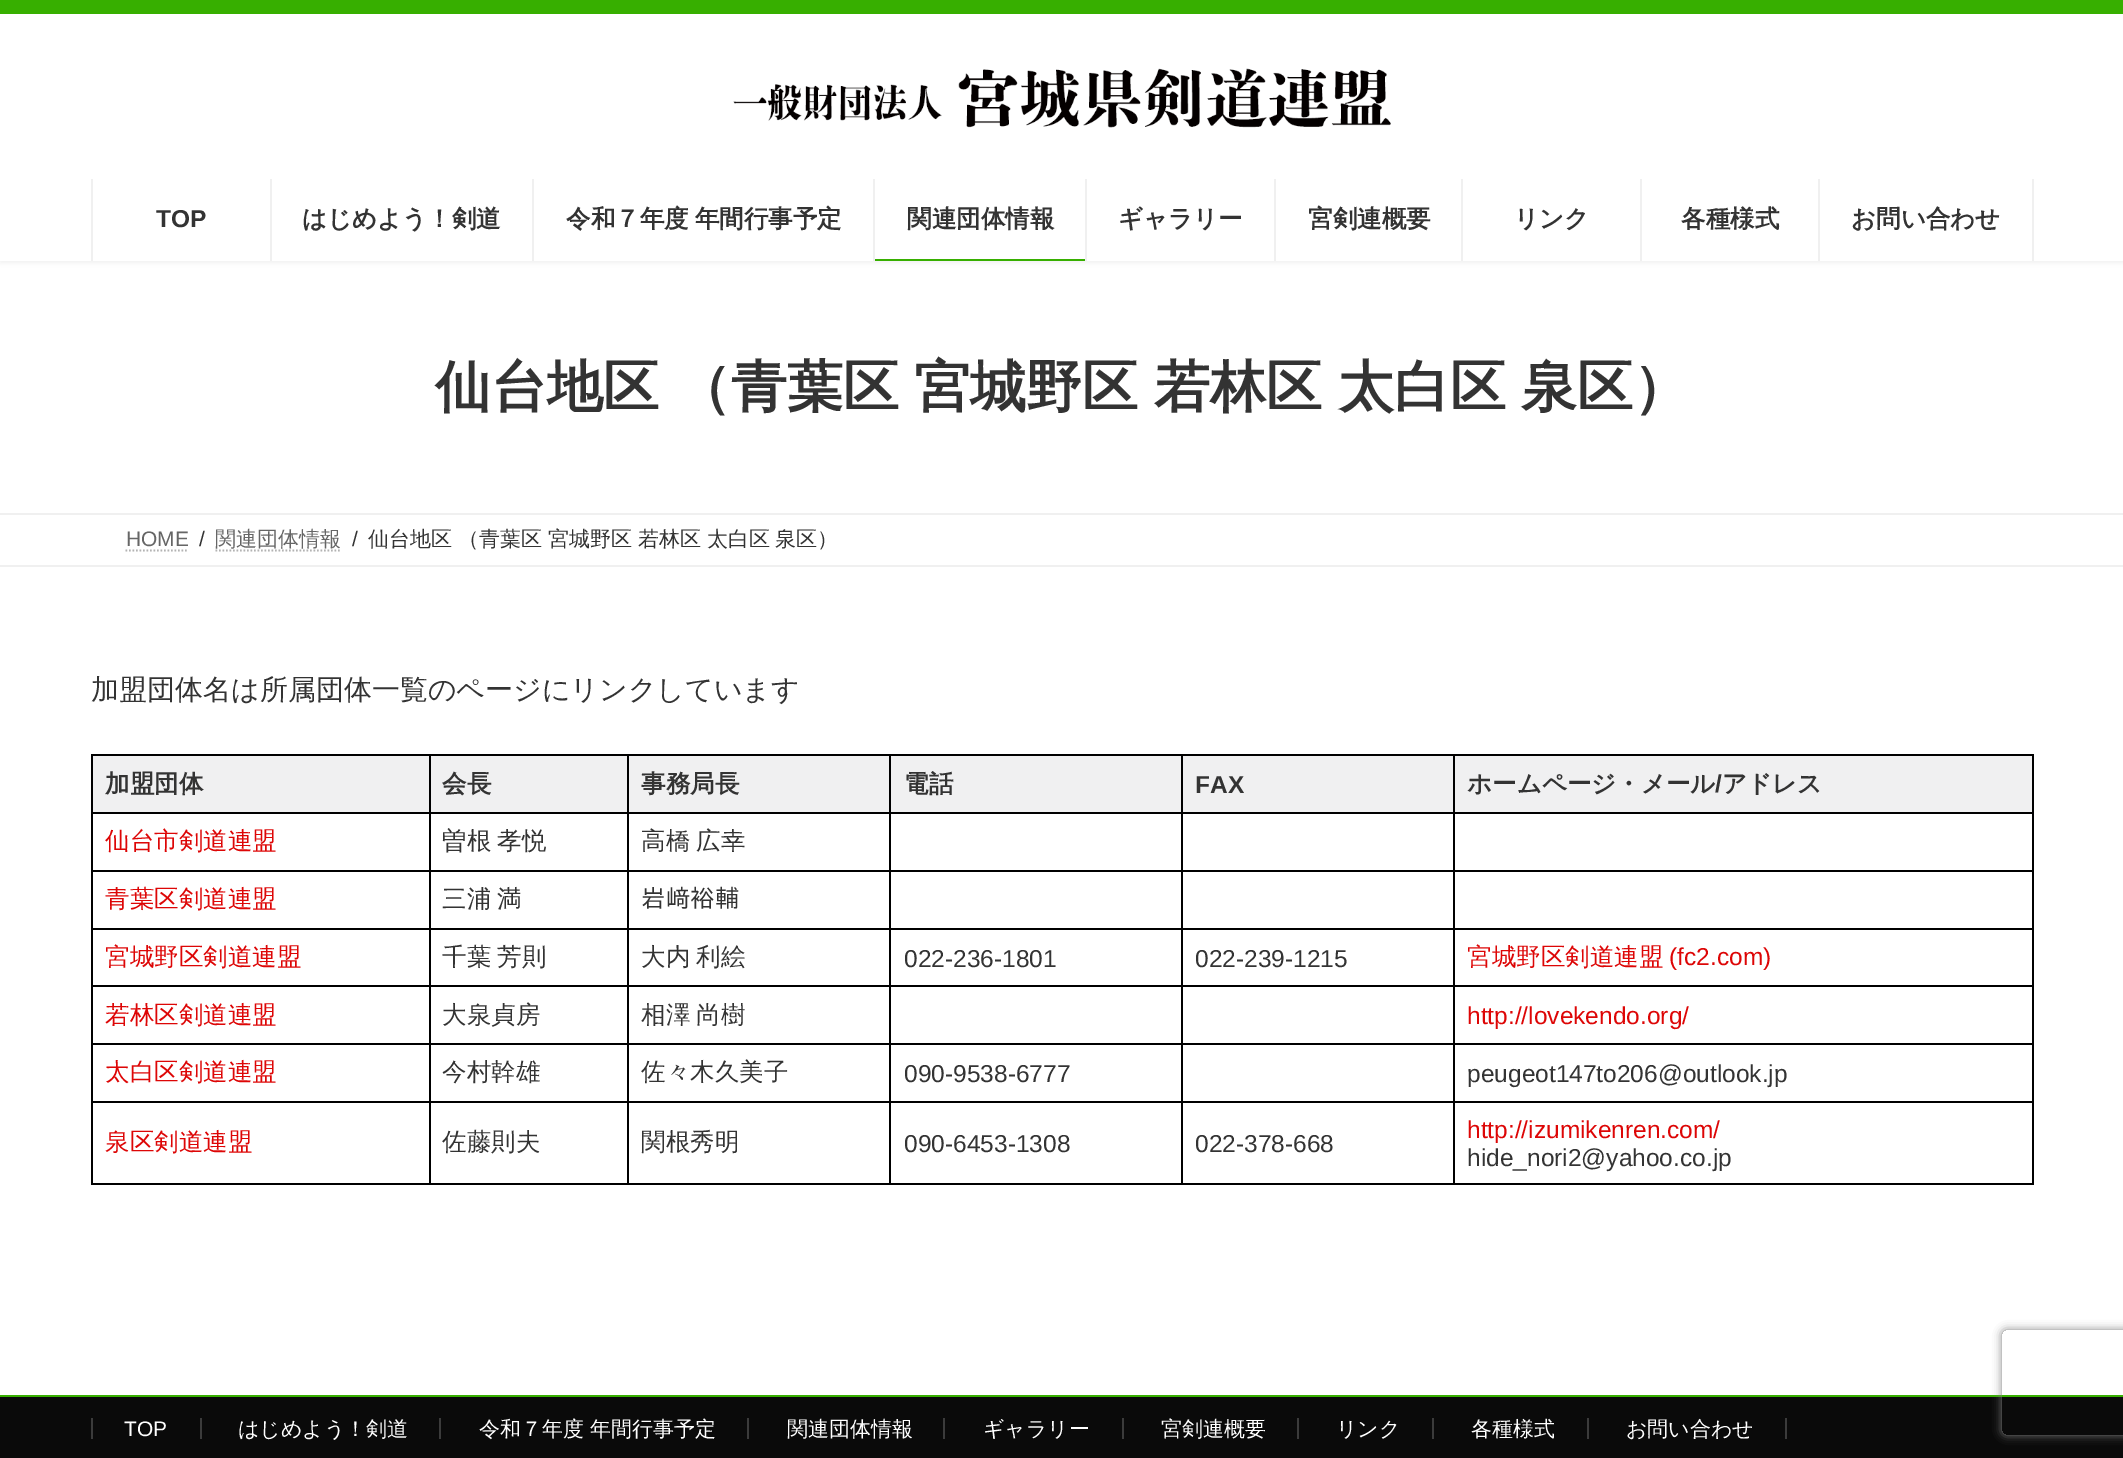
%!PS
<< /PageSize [2123 1458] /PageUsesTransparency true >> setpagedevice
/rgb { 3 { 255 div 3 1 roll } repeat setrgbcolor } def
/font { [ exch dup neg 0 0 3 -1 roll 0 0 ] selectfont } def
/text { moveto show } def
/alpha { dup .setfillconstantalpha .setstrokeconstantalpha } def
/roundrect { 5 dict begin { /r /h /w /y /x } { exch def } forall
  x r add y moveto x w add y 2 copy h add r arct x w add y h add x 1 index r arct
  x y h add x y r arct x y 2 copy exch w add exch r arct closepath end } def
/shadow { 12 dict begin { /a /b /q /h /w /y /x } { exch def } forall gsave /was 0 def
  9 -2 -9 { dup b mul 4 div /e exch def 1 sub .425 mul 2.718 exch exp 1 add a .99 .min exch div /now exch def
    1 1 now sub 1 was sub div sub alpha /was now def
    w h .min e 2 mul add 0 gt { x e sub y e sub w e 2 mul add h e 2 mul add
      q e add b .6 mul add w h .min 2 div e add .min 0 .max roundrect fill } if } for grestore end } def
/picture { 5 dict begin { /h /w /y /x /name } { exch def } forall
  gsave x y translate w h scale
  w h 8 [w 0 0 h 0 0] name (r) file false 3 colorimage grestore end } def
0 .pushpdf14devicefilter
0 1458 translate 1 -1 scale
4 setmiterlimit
255 255 255 rgb
0 0 2123 1458 rectfill
0 0 0 rgb
0 2 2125 261 0 2.5 0.05 shadow
255 255 255 rgb
0 14 2123 247 rectfill
55 175 0 rgb
0 0 2123 14 rectfill
(img_01.rgb) 733 68 658 60 picture
240 240 240 rgb
270 179 2 82 rectfill
91 179 2 82 rectfill
532 179 2 82 rectfill
873 179 2 82 rectfill
1085 179 2 82 rectfill
55 175 0 rgb
875 259 210 2 rectfill
240 240 240 rgb
1274 179 2 82 rectfill
1461 179 2 82 rectfill
1640 179 2 82 rectfill
1818 179 2 82 rectfill
2032 179 2 82 rectfill
0 513 2123 2 rectfill
0 565 2123 2 rectfill
179 179 179 rgb
1.8 setlinewidth
[1.75 1.75] 0 setdash
125.5 550.5 moveto 63 0 rlineto stroke
215.5 550.5 moveto 126 0 rlineto stroke
240 240 241 rgb
93 756 336 56 rectfill
0 0 0 rgb
1453 754 581 2 rectfill
1453 812 581 2 rectfill
1453 870 581 2 rectfill
1453 928 581 2 rectfill
1453 985 581 2 rectfill
1453 1043 581 2 rectfill
1453 1101 581 2 rectfill
2032 1101 2 84 rectfill
1453 1183 581 2 rectfill
1453 1101 2 84 rectfill
1181 1101 273 2 rectfill
1453 1043 2 60 rectfill
1181 1043 273 2 rectfill
1453 985 2 60 rectfill
1181 985 273 2 rectfill
1453 928 2 59 rectfill
1181 928 273 2 rectfill
1453 870 2 59 rectfill
1181 870 273 2 rectfill
1453 812 2 60 rectfill
1181 812 273 2 rectfill
1453 754 2 60 rectfill
1181 754 273 2 rectfill
1181 1183 273 2 rectfill
1181 1101 2 84 rectfill
889 1101 294 2 rectfill
1181 1043 2 60 rectfill
889 1043 294 2 rectfill
1181 985 2 60 rectfill
889 985 294 2 rectfill
1181 928 2 59 rectfill
889 928 294 2 rectfill
1181 870 2 59 rectfill
889 870 294 2 rectfill
1181 812 2 60 rectfill
889 812 294 2 rectfill
1181 754 2 60 rectfill
889 754 294 2 rectfill
889 1183 294 2 rectfill
889 1101 2 84 rectfill
627 1101 264 2 rectfill
889 1043 2 60 rectfill
627 1043 264 2 rectfill
889 985 2 60 rectfill
627 985 264 2 rectfill
889 928 2 59 rectfill
627 928 264 2 rectfill
889 870 2 59 rectfill
627 870 264 2 rectfill
889 812 2 60 rectfill
627 812 264 2 rectfill
889 754 2 60 rectfill
627 754 264 2 rectfill
627 1183 264 2 rectfill
627 1101 2 84 rectfill
429 1101 199 2 rectfill
627 1043 2 60 rectfill
429 1043 199 2 rectfill
627 985 2 60 rectfill
429 985 199 2 rectfill
627 928 2 59 rectfill
429 928 199 2 rectfill
627 870 2 59 rectfill
429 870 199 2 rectfill
627 812 2 60 rectfill
429 812 199 2 rectfill
627 754 2 60 rectfill
429 754 199 2 rectfill
429 1183 199 2 rectfill
429 1101 2 84 rectfill
91 1101 340 2 rectfill
429 1043 2 60 rectfill
91 1043 340 2 rectfill
429 985 2 60 rectfill
91 985 340 2 rectfill
429 928 2 59 rectfill
91 928 340 2 rectfill
429 870 2 59 rectfill
91 870 340 2 rectfill
429 812 2 60 rectfill
91 812 340 2 rectfill
429 754 2 60 rectfill
91 754 340 2 rectfill
91 1183 340 2 rectfill
91 1101 2 84 rectfill
91 1043 2 60 rectfill
91 985 2 60 rectfill
91 928 2 59 rectfill
91 870 2 59 rectfill
91 812 2 60 rectfill
91 754 2 60 rectfill
240 240 241 rgb
431 756 196 56 rectfill
629 756 260 56 rectfill
891 756 290 56 rectfill
1183 756 270 56 rectfill
1455 756 577 56 rectfill
0 0 0 rgb
2032 1043 2 60 rectfill
2032 985 2 60 rectfill
2032 928 2 59 rectfill
2032 870 2 59 rectfill
2032 812 2 60 rectfill
2032 754 2 60 rectfill
10 10 10 rgb
0 1397 2123 61 rectfill
55 175 0 rgb
0 1395 2123 2 rectfill
59 59 59 rgb
200 1418 2 21 rectfill
91 1418 2 21 rectfill
439 1418 2 21 rectfill
747 1418 2 21 rectfill
943 1418 2 21 rectfill
1122 1418 2 21 rectfill
1297 1418 2 21 rectfill
1432 1418 2 21 rectfill
1587 1418 2 21 rectfill
1785 1418 2 21 rectfill
gsave
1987 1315 moveto 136 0 rlineto 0 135 rlineto -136 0 rlineto closepath 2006 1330 moveto 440 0 rlineto 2 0 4 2 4 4 rcurveto 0 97 rlineto 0 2 -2 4 -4 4 rcurveto -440 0 rlineto -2 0 -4 -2 -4 -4 rcurveto 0 -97 rlineto 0 -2 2 -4 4 -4 rcurveto closepath eoclip newpath
128 128 128 rgb
2002 1330 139 105 4 4.5 1 shadow
grestore
/LiberationSans-Bold 24.5 font
51 51 51 rgb
(TOP) 156 227 text
/WenQuanYiZenHei-Bold 24.5 font
(はじめよう！剣道) 302 227 text
566 227 moveto -1 0 32 (令和７年度 年間行事予定) widthshow
(関連団体情報) 907 227 text
(ギャラリー) 1118 227 text
(宮剣連概要) 1308 227 text
(リンク) 1514 227 text
(各種様式) 1681 227 text
(お問い合わせ) 1851 227 text
/WenQuanYiZenHei-Bold 56 font
435 406 moveto -1 0 32 (仙台地区 （青葉区) widthshow
(宮城野区) 914 406 text
(若林区) 1154 406 text
(太白区) 1338 406 text
(泉区）) 1521 406 text
/LiberationSans-Regular 21 font
102 102 102 rgb
(HOME) 126 546 text
51 51 51 rgb
(/) 199 546 text
/WenQuanYiZenHei-Medium 21 font
102 102 102 rgb
(関連団体情報) 215 546 text
/LiberationSans-Regular 21 font
51 51 51 rgb
(/) 352 546 text
/WenQuanYiZenHei-Medium 21 font
(仙台地区 （青葉区) 368 546 text
(宮城野区) 548 546 text
(若林区) 638 546 text
(太白区) 707 546 text
(泉区）) 775 546 text
/WenQuanYiZenHei-Medium 28 font
(加盟団体名は所属団体一覧のページにリンクしています) 91 699 text
/WenQuanYiZenHei-Bold 24.5 font
(加盟団体) 105 792 text
(会長) 442 792 text
(事務局長) 641 792 text
(電話) 904 792 text
/LiberationSans-Bold 24.5 font
(FAX) 1195 793 text
/WenQuanYiZenHei-Bold 24.5 font
(ホームページ・メール) 1467 792 text
/LiberationSans-Bold 24.5 font
(/) 1715 792 text
/WenQuanYiZenHei-Bold 24.5 font
(アドレス) 1722 792 text
/WenQuanYiZenHei-Medium 24.5 font
221 6 6 rgb
(仙台市剣道連盟) 105 849 text
51 51 51 rgb
442 849 moveto -1 0 32 (曽根 孝悦) widthshow
641 849 moveto -1 0 32 (高橋 広幸) widthshow
221 6 6 rgb
(青葉区剣道連盟) 105 907 text
51 51 51 rgb
442 907 moveto -1 0 32 (三浦 満) widthshow
/IPAPGothic-Regular 24.5 font
(岩﨑裕輔) 641 907 text
/WenQuanYiZenHei-Medium 24.5 font
221 6 6 rgb
(宮城野区剣道連盟) 105 965 text
51 51 51 rgb
442 965 moveto -1 0 32 (千葉 芳則) widthshow
641 965 moveto -1 0 32 (大内 利絵) widthshow
/LiberationSans-Regular 24.5 font
(022-236-1801) 904 967 text
(022-239-1215) 1195 967 text
/WenQuanYiZenHei-Medium 24.5 font
221 6 6 rgb
(宮城野区剣道連盟) 1467 965 text
/LiberationSans-Regular 24.5 font
(\(fc2.com\)) 1669 965 text
/WenQuanYiZenHei-Medium 24.5 font
(若林区剣道連盟) 105 1023 text
51 51 51 rgb
(大泉貞房) 442 1023 text
641 1023 moveto -1 0 32 (相澤 尚樹) widthshow
/LiberationSans-Regular 24.5 font
221 6 6 rgb
(http://lovekendo.org/) 1467 1024 text
/WenQuanYiZenHei-Medium 24.5 font
(太白区剣道連盟) 105 1080 text
51 51 51 rgb
(今村幹雄) 442 1080 text
(佐々木久美子) 641 1080 text
/LiberationSans-Regular 24.5 font
(090-9538-6777) 904 1082 text
(peugeot147to206@outlook.jp) 1467 1082 text
/WenQuanYiZenHei-Medium 24.5 font
221 6 6 rgb
(泉区剣道連盟) 105 1150 text
51 51 51 rgb
(佐藤則夫) 442 1150 text
(関根秀明) 641 1150 text
/LiberationSans-Regular 24.5 font
(090-6453-1308) 904 1152 text
(022-378-668) 1195 1152 text
221 6 6 rgb
(http://izumikenren.com/) 1467 1138 text
51 51 51 rgb
(hide_nori2@yahoo.co.jp) 1467 1166 text
/LiberationSans-Regular 21 font
255 255 255 rgb
(TOP) 124 1436 text
/WenQuanYiZenHei-Medium 21 font
(はじめよう！剣道) 238 1436 text
(令和７年度 年間行事予定) 479 1436 text
(関連団体情報) 787 1436 text
(ギャラリー) 983 1436 text
(宮剣連概要) 1161 1436 text
(リンク) 1336 1436 text
(各種様式) 1471 1436 text
(お問い合わせ) 1626 1436 text
.poppdf14devicefilter showpage
